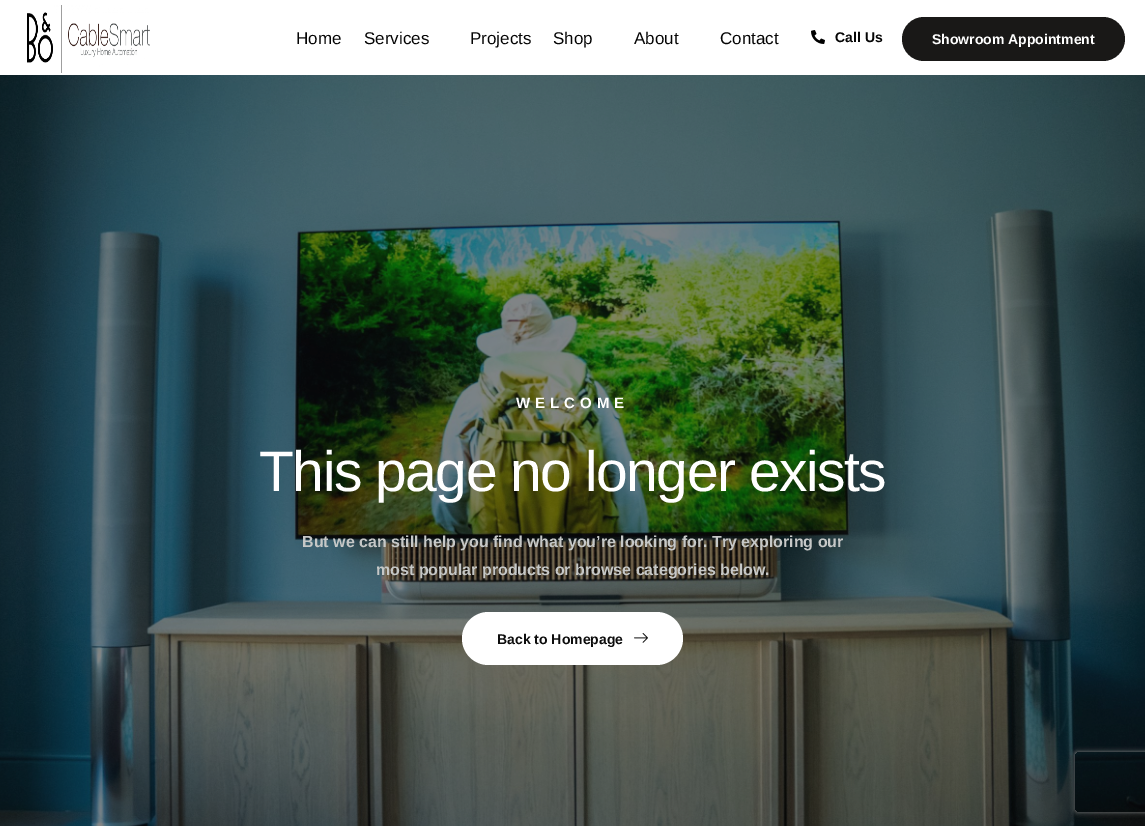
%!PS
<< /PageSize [1145 826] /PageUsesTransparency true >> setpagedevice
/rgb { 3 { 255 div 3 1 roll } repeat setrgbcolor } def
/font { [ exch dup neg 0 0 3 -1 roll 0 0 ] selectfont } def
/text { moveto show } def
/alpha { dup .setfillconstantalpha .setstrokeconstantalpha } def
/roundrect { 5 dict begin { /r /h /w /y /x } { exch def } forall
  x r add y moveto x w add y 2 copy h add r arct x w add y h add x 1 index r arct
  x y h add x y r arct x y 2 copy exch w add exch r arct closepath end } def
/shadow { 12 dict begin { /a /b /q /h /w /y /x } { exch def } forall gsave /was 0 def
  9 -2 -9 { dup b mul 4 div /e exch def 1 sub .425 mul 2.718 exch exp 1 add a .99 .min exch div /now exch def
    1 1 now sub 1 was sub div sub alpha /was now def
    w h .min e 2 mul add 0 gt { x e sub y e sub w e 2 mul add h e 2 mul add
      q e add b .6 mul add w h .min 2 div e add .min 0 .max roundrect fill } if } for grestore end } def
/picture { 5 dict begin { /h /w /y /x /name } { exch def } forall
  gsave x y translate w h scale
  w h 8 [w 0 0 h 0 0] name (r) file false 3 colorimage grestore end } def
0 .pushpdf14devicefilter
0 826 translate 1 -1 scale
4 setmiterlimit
255 255 255 rgb
0 0 1145 826 rectfill
(img_01.rgb) 27 5 123 68 picture
(img_02.rgb) 811 30 14 14 picture
25 24 23 rgb
902 17 223 44 22 roundrect fill
(img_03.rgb) 0 75 1145 751 picture
255 255 255 rgb
462 612 221 53 26.5 roundrect fill
(img_04.rgb) 634 633 14 10 picture
gsave
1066 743 moveto 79 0 rlineto 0 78 rlineto -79 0 rlineto closepath 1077 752 moveto 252 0 rlineto 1 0 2 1 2 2 rcurveto 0 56 rlineto 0 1 -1 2 -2 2 rcurveto -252 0 rlineto -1 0 -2 -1 -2 -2 rcurveto 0 -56 rlineto 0 -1 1 -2 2 -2 rcurveto closepath eoclip newpath
128 128 128 rgb
1075 752 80 60 2 2.5 1 shadow
grestore
/LiberationSans-Regular 17 font
5 5 5 rgb
(Home) 296 44 text
(Services) 364 44 text
(Projects) 470 44 text
(Shop) 553 44 text
(About) 634 44 text
(Contact) 720 44 text
/LiberationSans-Bold 14 font
(Call Us) 835 42 text
255 255 255 rgb
(Showroom Appointment) 932 44 text
/LiberationSans-Bold 15 font
516 408 moveto 5 0 (WELCOME) ashow
/LiberationSans-Regular 57 font
259 491 moveto -1.5 0 (This page no longer exists) ashow
/LiberationSans-Bold 16 font
198 200 199 rgb
(But we can still help you find what you’re looking for. Try exploring our) 302 547 text
(most popular products or browse categories below.) 376 575 text
/LiberationSans-Bold 14 font
13 13 13 rgb
(Back to Homepage) 497 644 text
.poppdf14devicefilter showpage
